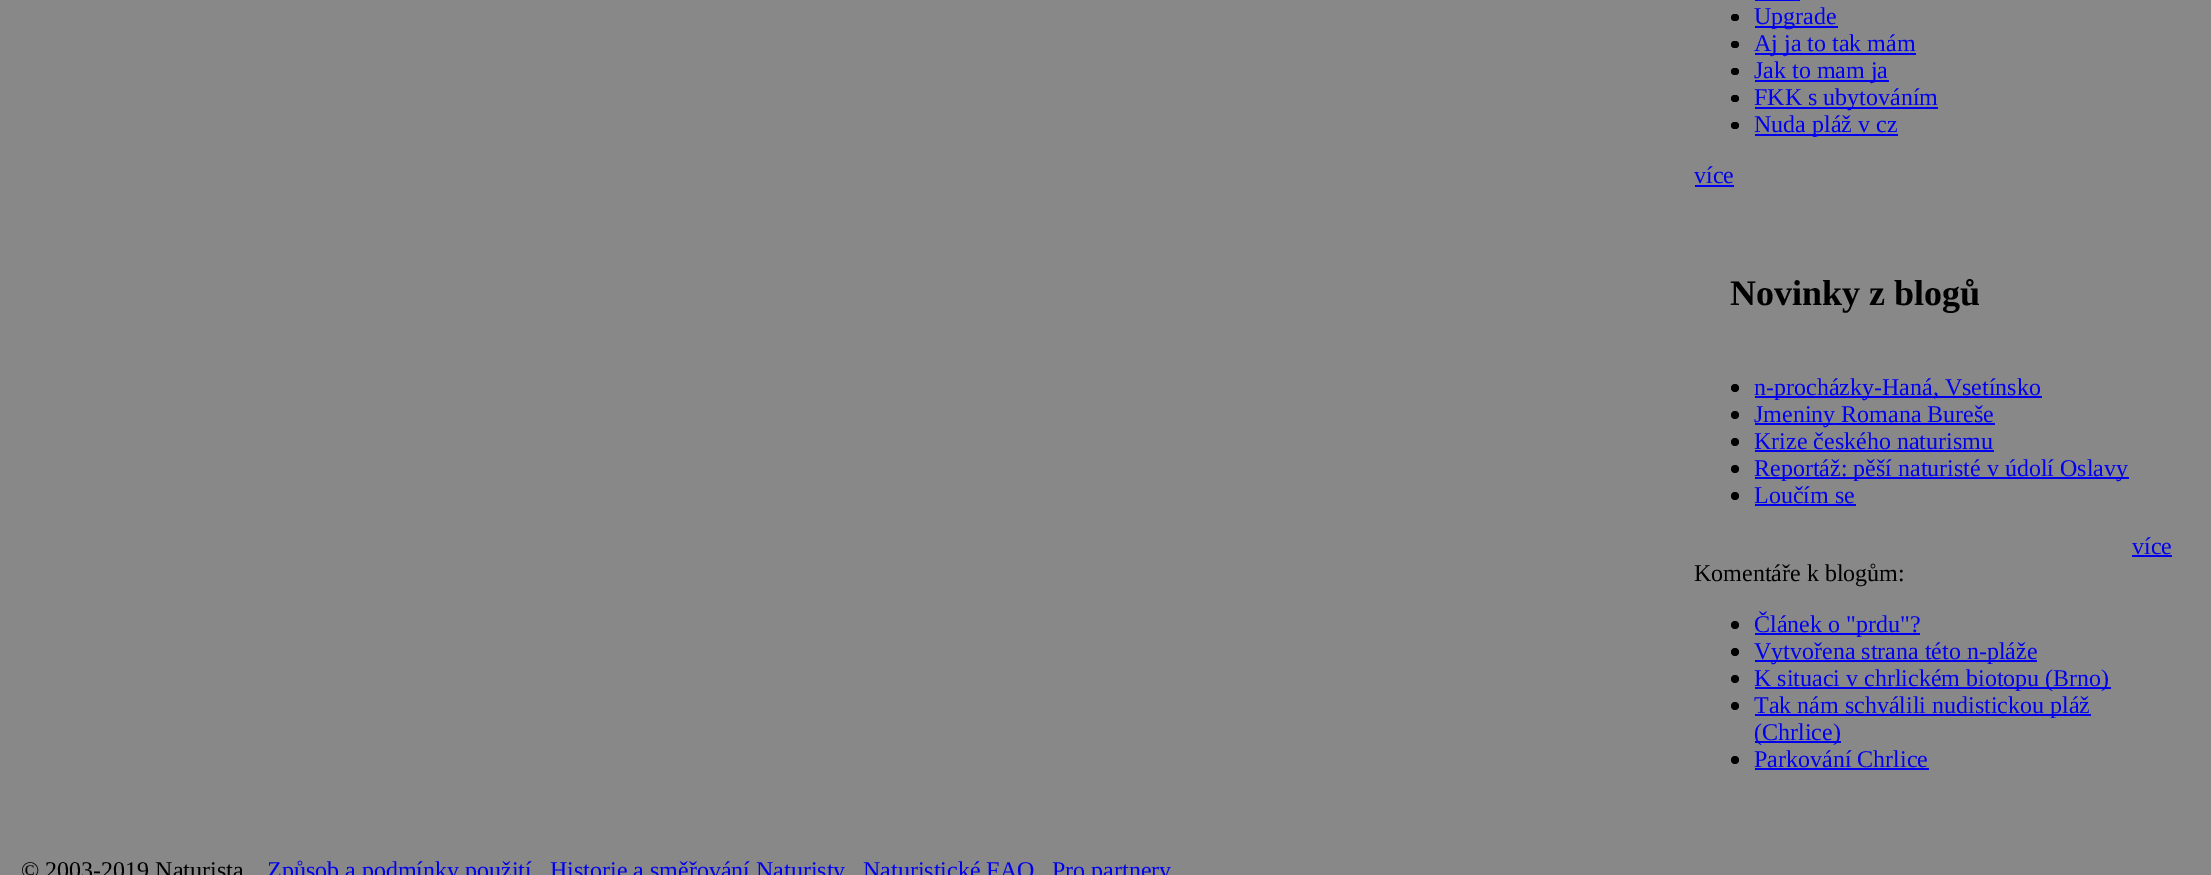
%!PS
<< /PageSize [2211 875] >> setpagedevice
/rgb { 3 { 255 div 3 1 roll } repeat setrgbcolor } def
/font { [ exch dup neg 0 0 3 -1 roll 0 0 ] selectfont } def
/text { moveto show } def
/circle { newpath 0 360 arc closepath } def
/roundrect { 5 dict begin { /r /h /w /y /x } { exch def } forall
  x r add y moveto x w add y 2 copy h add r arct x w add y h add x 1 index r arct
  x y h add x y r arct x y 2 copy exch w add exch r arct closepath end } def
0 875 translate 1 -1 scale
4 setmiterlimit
136 136 136 rgb
0 0 2211 875 rectfill
0 0 238 rgb
1755 0 45 1 rectfill
0 0 0 rgb
1731 14 8 7 3.5 roundrect fill
0 0 238 rgb
1755 26 83 2 rectfill
0 0 0 rgb
1731 41 8 7 3.5 roundrect fill
0 0 238 rgb
1755 53 161 2 rectfill
0 0 0 rgb
1731 68 8 7 3.5 roundrect fill
0 0 238 rgb
1755 80 134 2 rectfill
0 0 0 rgb
1731 95 8 7 3.5 roundrect fill
0 0 238 rgb
1755 107 183 2 rectfill
0 0 0 rgb
1731 122 8 7 3.5 roundrect fill
0 0 238 rgb
1755 134 143 2 rectfill
1695 185 39 2 rectfill
0 0 0 rgb
1735 388 4 circle fill
0 0 238 rgb
1755 396 287 2 rectfill
0 0 0 rgb
1735 415 4 circle fill
0 0 238 rgb
1755 423 240 2 rectfill
0 0 0 rgb
1735 442 4 circle fill
0 0 238 rgb
1755 450 239 2 rectfill
0 0 0 rgb
1735 469 4 circle fill
0 0 238 rgb
1755 477 374 2 rectfill
0 0 0 rgb
1735 496 4 circle fill
0 0 238 rgb
1755 504 101 2 rectfill
2132 555 40 2 rectfill
0 0 0 rgb
1735 625 4 circle fill
0 0 238 rgb
1755 633 165 2 rectfill
0 0 0 rgb
1735 652 4 circle fill
0 0 238 rgb
1755 660 282 2 rectfill
0 0 0 rgb
1735 679 4 circle fill
0 0 238 rgb
1755 687 356 2 rectfill
0 0 0 rgb
1735 706 4 circle fill
0 0 238 rgb
1755 714 336 2 rectfill
1755 741 86 2 rectfill
0 0 0 rgb
1735 760 4 circle fill
0 0 238 rgb
1755 768 174 2 rectfill
/LiberationSerif-Regular 24 font
(Upgrade) 1754 24 text
(Aj ja to tak mám) 1754 51 text
(Jak to mam ja) 1754 78 text
(FKK s ubytováním) 1754 105 text
(Nuda pláž v cz) 1754 132 text
(více) 1694 183 text
/LiberationSerif-Bold 36 font
0 0 0 rgb
(Novinky z blogů) 1730 305 text
/LiberationSerif-Regular 24 font
0 0 238 rgb
(n-procházky-Haná, Vsetínsko) 1754 395 text
(Jmeniny Romana Bureše) 1754 422 text
(Krize českého naturismu) 1754 449 text
(Reportáž: pěší naturisté v údolí Oslavy) 1754 476 text
(Loučím se) 1754 503 text
(více) 2132 554 text
0 0 0 rgb
(Komentáře k blogům:) 1694 581 text
0 0 238 rgb
(Článek o "prdu"?) 1754 632 text
(Vytvořena strana této n-pláže) 1754 659 text
(K situaci v chrlickém biotopu \(Brno\)) 1754 686 text
(Tak nám schválili nudistickou pláž) 1754 713 text
(\(Chrlice\)) 1754 740 text
(Parkování Chrlice) 1754 767 text
0 0 0 rgb
(© 2003-2019 Naturista) 21 878 text
0 0 238 rgb
(Způsob a podmínky použití) 267 878 text
(Historie a směřování Naturisty) 550 878 text
(Naturistické FAQ) 863 878 text
(Pro partnery) 1052 878 text
showpage
